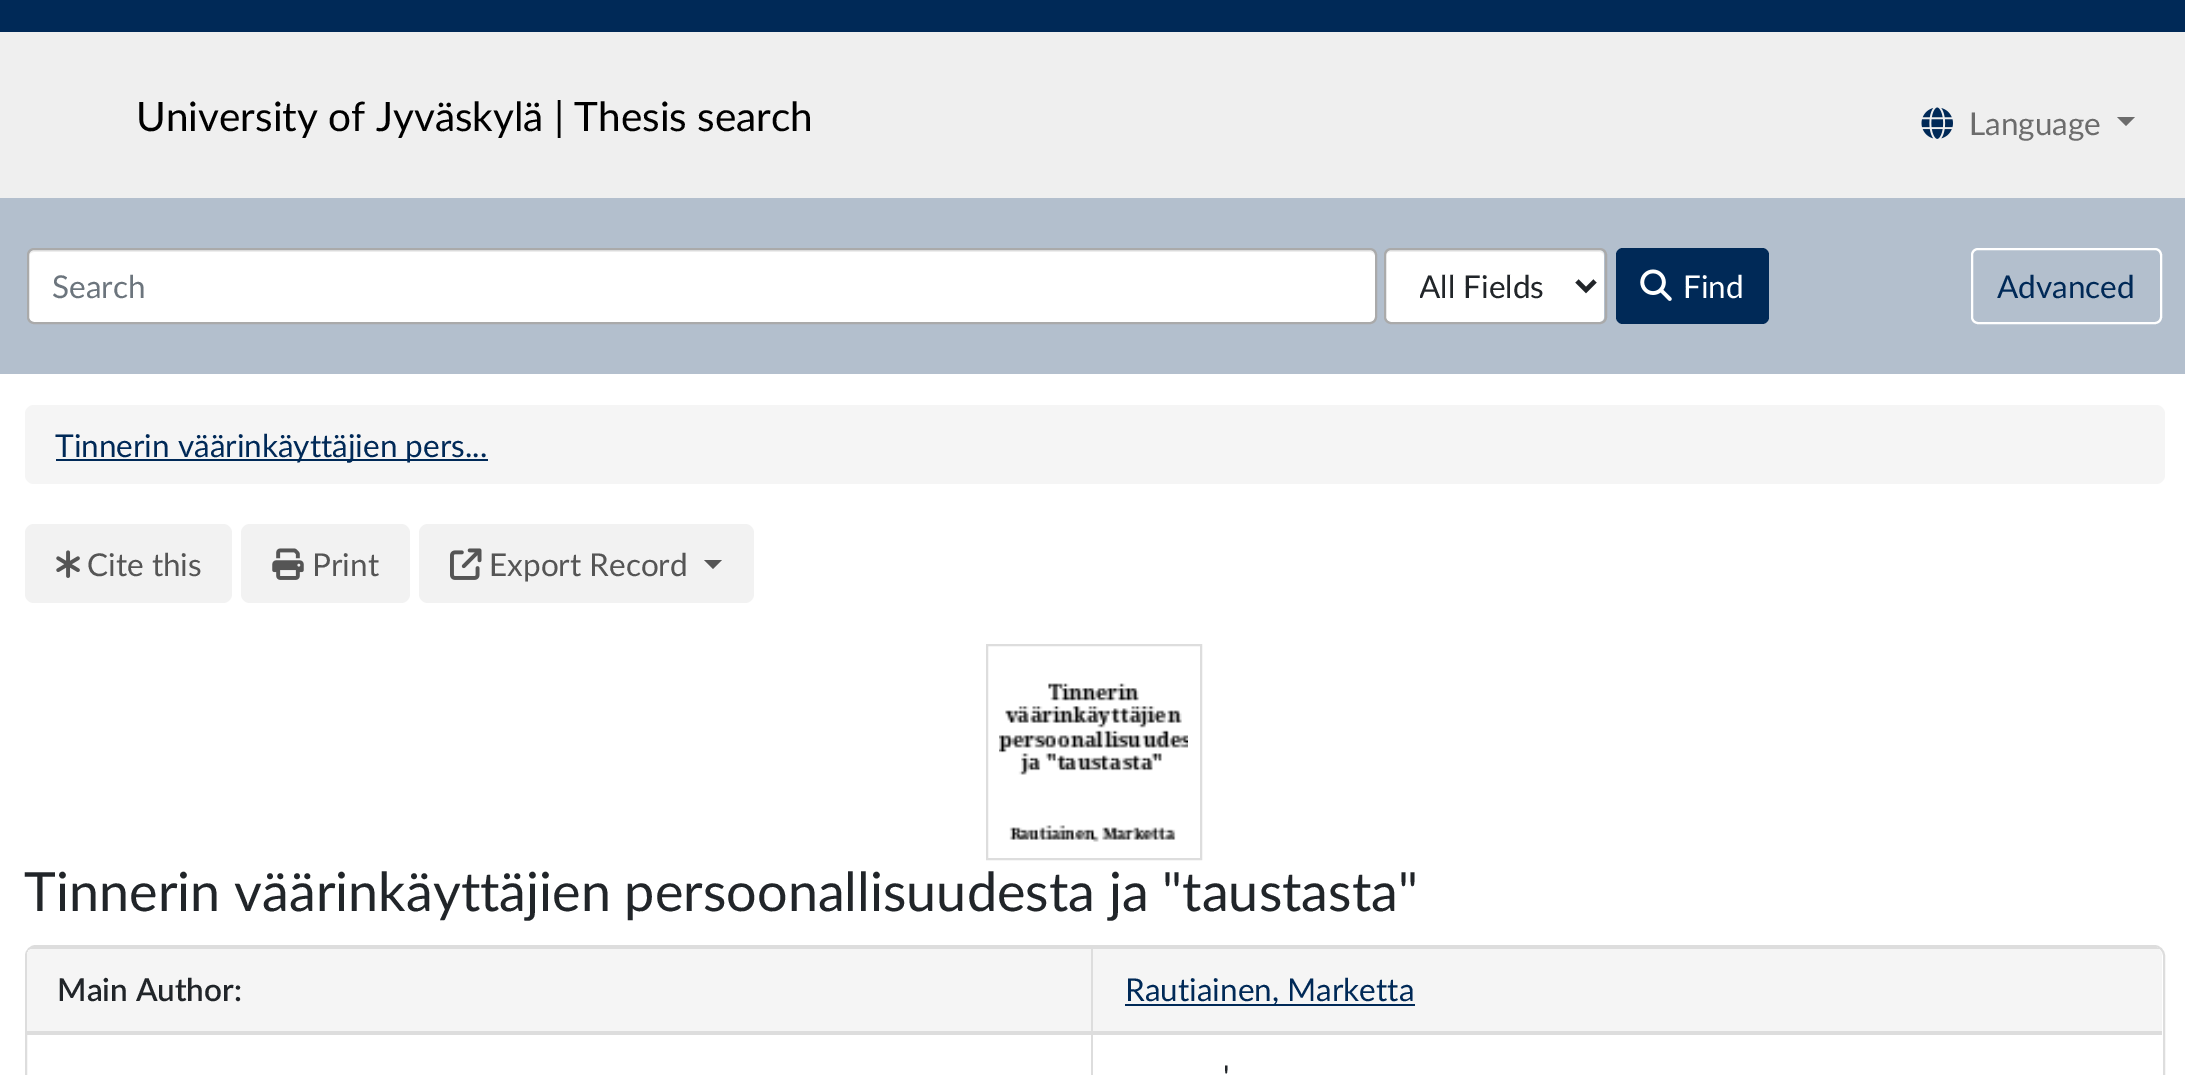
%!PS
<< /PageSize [2185 1075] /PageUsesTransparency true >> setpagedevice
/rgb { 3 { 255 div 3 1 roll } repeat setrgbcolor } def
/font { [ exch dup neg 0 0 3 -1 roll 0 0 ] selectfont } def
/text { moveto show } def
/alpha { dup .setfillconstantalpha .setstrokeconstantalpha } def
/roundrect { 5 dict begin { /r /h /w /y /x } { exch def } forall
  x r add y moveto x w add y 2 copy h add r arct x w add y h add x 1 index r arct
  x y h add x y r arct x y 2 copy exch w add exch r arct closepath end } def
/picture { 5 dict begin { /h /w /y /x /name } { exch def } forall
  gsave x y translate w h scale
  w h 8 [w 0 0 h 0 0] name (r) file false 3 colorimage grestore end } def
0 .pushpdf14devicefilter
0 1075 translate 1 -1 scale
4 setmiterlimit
255 255 255 rgb
0 0 2185 1075 rectfill
0 41 87 rgb
0 0 2185 32 rectfill
239 239 239 rgb
0 32 2185 166 rectfill
(img_01.rgb) 1921 107 32 32 picture
108 108 108 rgb
2117 117 moveto 18 0 rlineto -9 9 rlineto closepath fill
179 191 205 rgb
0 198 2185 176 rectfill
255 255 255 rgb
29 250 1346 72 5 roundrect fill
0.07 alpha
0 0 0 rgb
34 252 moveto 1336 0 rlineto 3 0 5 2 5 4 rcurveto 0 -3 -2 -6 -5 -6 rcurveto -1336 0 rlineto -3 0 -5 3 -5 6 rcurveto 0 -2 2 -4 5 -4 rcurveto closepath fill
1 alpha
170 170 170 rgb
2 setlinewidth
28 249 1348 74 6 roundrect stroke
255 255 255 rgb
1386 250 218 72 5 roundrect fill
0.07 alpha
0 0 0 rgb
1390 252 moveto 210 0 rlineto 2 0 4 2 4 4 rcurveto 0 -3 -2 -6 -5 -6 rcurveto -209 0 rlineto -3 1 -4 3 -4 6 rcurveto 0 -2 2 -4 4 -4 rcurveto closepath fill
1 alpha
170 170 170 rgb
1385 249 221 74 6 roundrect stroke
33 37 41 rgb
4.5 setlinewidth
1577 281 moveto 9 9 rlineto 9 -9 rlineto stroke
0 41 87 rgb
1616 248 153 76 7 roundrect fill
(img_02.rgb) 1640 269 32 32 picture
255 255 255 rgb
2 setlinewidth
1972 249 189 74 6 roundrect stroke
245 245 245 rgb
25 405 2140 79 9 roundrect fill
0 41 87 rgb
56 459 432 2 rectfill
242 242 242 rgb
25 524 207 79 9 roundrect fill
(img_03.rgb) 56 550 24 28 picture
241 524 169 79 9 roundrect fill
(img_04.rgb) 272 548 32 32 picture
419 524 335 79 9 roundrect fill
(img_05.rgb) 450 548 32 32 picture
85 85 85 rgb
704 560 moveto 18 0 rlineto -9 9 rlineto closepath fill
221 221 221 rgb
987 645 214 214 rectstroke
(img_06.rgb) 999 683 189 159 picture
26 946 2138 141 10 roundrect stroke
245 245 245 rgb
36 947 moveto 2117 0 rlineto 5 0 9 4 9 9 rcurveto 0 77 rlineto -2135 0 rlineto 0 -77 rlineto 0 -5 4 -9 9 -9 rcurveto closepath fill
gsave
27 947 2135 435 9 roundrect clip newpath
27 950 1064 81 rectfill
221 221 221 rgb
27 947 1067 2 rectfill
grestore
221 221 221 rgb
1091 947 2 86 rectfill
27 1031 2135 2 rectfill
gsave
27 947 2135 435 9 roundrect clip newpath
1094 947 1068 2 rectfill
grestore
0 41 87 rgb
1125 1004 290 2 rectfill
221 221 221 rgb
27 1033 2135 2 rectfill
1091 1033 2 42 rectfill
/Lato-Regular 40.5 font
0 0 0 rgb
(University of Jyväskylä | Thesis search) 136 131 text
/Lato-Regular 31.5 font
108 108 108 rgb
(Language) 1969 135 text
108 117 125 rgb
(Search) 52 298 text
gsave
1420 266 126 42 rectclip
33 37 41 rgb
(All Fields) 1419 298 text
grestore
255 255 255 rgb
(Find) 1683 298 text
0 41 87 rgb
(Advanced) 1997 298 text
(Tinnerin väärinkäyttäjien pers...) 55 457 text
85 85 85 rgb
(Cite this) 87 576 text
(Print) 312 576 text
(Export Record) 489 576 text
/Lato-Regular 54 font
33 37 41 rgb
(Tinnerin väärinkäyttäjien persoonallisuudesta ja "taustasta") 24 911 text
/Lato-SemiBold 31.5 font
(Main Author:) 57 1001 text
/Lato-Regular 31.5 font
0 41 87 rgb
(Rautiainen, Marketta) 1125 1001 text
33 37 41 rgb
(') 1223 1088 text
.poppdf14devicefilter showpage
